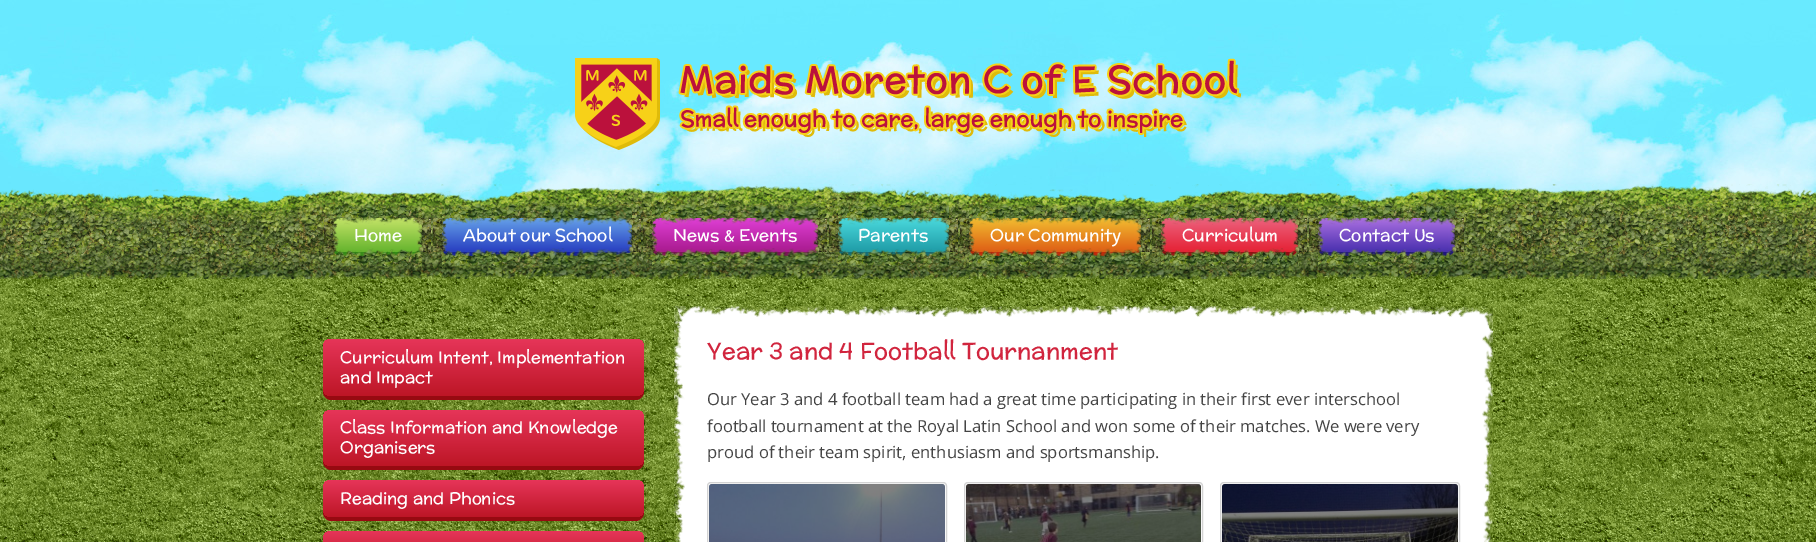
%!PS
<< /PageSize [1816 542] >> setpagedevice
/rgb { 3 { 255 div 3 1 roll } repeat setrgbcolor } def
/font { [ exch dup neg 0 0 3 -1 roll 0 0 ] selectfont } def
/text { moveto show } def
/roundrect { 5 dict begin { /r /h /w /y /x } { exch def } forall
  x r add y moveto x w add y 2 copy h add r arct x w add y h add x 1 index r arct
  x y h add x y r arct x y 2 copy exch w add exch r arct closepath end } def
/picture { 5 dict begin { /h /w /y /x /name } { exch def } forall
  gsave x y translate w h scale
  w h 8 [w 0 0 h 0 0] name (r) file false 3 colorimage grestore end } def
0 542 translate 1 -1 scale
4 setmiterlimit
255 255 255 rgb
0 0 1816 542 rectfill
(img_01.rgb) 0 0 1816 211 picture
(img_02.rgb) 575 58 667 92 picture
(img_03.rgb) 0 184 1816 86 picture
53 140 22 rgb
333 244 moveto 0 15 7 12 20 12 rcurveto 49 0 rlineto 13 0 20 3 20 -12 rcurveto 0 4 -4 8 -8 8 rcurveto -73 0 rlineto -4 0 -8 -4 -8 -8 rcurveto closepath fill
gsave 333 218 89 34 8 roundrect clip newpath
<< /ShadingType 2 /ColorSpace /DeviceRGB /Coords [378 218 378 252] /Extend [true true] /Function << /FunctionType 2 /Domain [0 1] /C0 [0.769 0.89 0.404] /C1 [0.392 0.702 0.176] /N 1 >> >> shfill grestore
(img_04.rgb) 333 202 89 23 picture
(img_07.rgb) 333 248 89 22 picture
(img_05.rgb) 324 218 15 34 picture
(img_06.rgb) 415 218 16 34 picture
18 29 159 rgb
442 244 moveto 0 4 rlineto 0 4 4 8 8 8 rcurveto 174 0 rlineto 4 0 8 -4 8 -8 rcurveto 0 -4 rlineto 0 4 -4 8 -8 8 rcurveto -174 0 rlineto -4 0 -8 -4 -8 -8 rcurveto closepath fill
gsave 442 218 190 34 8 roundrect clip newpath
<< /ShadingType 2 /ColorSpace /DeviceRGB /Coords [537 218 537 252] /Extend [true true] /Function << /FunctionType 2 /Domain [0 1] /C0 [0.396 0.631 0.914] /C1 [0.153 0.239 0.753] /N 1 >> >> shfill grestore
(img_08.rgb) 442 202 190 23 picture
(img_32.rgb) 0 270 1816 272 picture
(img_33.rgb) 0 270 1816 9 picture
(img_11.rgb) 442 248 190 23 picture
(img_09.rgb) 433 218 15 34 picture
(img_10.rgb) 625 218 16 34 picture
128 14 90 rgb
652 244 moveto 0 4 rlineto 0 4 4 8 8 8 rcurveto 150 0 rlineto 4 0 8 -4 8 -8 rcurveto 0 -4 rlineto 0 4 -4 8 -8 8 rcurveto -150 0 rlineto -4 0 -8 -4 -8 -8 rcurveto closepath fill
gsave 652 218 166 34 8 roundrect clip newpath
<< /ShadingType 2 /ColorSpace /DeviceRGB /Coords [735 218 735 252] /Extend [true true] /Function << /FunctionType 2 /Domain [0 1] /C0 [0.875 0.247 0.835] /C1 [0.659 0.102 0.557] /N 1 >> >> shfill grestore
(img_12.rgb) 652 202 166 23 picture
(img_15.rgb) 652 248 166 23 picture
(img_13.rgb) 643 218 15 34 picture
(img_14.rgb) 811 218 16 34 picture
16 107 122 rgb
838 244 moveto 0 4 rlineto 0 4 4 8 8 8 rcurveto 95 0 rlineto 4 0 8 -4 8 -8 rcurveto 0 -4 rlineto 0 4 -4 8 -8 8 rcurveto -95 0 rlineto -4 0 -8 -4 -8 -8 rcurveto closepath fill
gsave 838 218 111 34 8 roundrect clip newpath
<< /ShadingType 2 /ColorSpace /DeviceRGB /Coords [894 218 894 252] /Extend [true true] /Function << /FunctionType 2 /Domain [0 1] /C0 [0.29 0.851 0.867] /C1 [0.122 0.608 0.651] /N 1 >> >> shfill grestore
(img_16.rgb) 838 202 111 23 picture
(img_19.rgb) 838 248 111 22 picture
(img_17.rgb) 829 218 15 34 picture
(img_18.rgb) 942 218 16 34 picture
201 39 8 rgb
969 244 moveto 0 4 rlineto 0 4 4 8 8 8 rcurveto 156 0 rlineto 4 0 8 -4 8 -8 rcurveto 0 -4 rlineto 0 4 -4 8 -8 8 rcurveto -156 0 rlineto -4 0 -8 -4 -8 -8 rcurveto closepath fill
gsave 969 218 172 34 8 roundrect clip newpath
<< /ShadingType 2 /ColorSpace /DeviceRGB /Coords [1055 218 1055 252] /Extend [true true] /Function << /FunctionType 2 /Domain [0 1] /C0 [0.949 0.745 0.188] /C1 [0.871 0.365 0.082] /N 1 >> >> shfill grestore
(img_20.rgb) 969 202 172 23 picture
(img_23.rgb) 969 248 172 23 picture
(img_21.rgb) 960 218 15 34 picture
(img_22.rgb) 1134 218 16 34 picture
151 10 17 rgb
1161 244 moveto 0 4 rlineto 0 4 4 8 8 8 rcurveto 121 0 rlineto 4 0 8 -4 8 -8 rcurveto 0 -4 rlineto 0 4 -4 8 -8 8 rcurveto -121 0 rlineto -4 0 -8 -4 -8 -8 rcurveto closepath fill
gsave 1161 218 137 34 8 roundrect clip newpath
<< /ShadingType 2 /ColorSpace /DeviceRGB /Coords [1230 218 1230 252] /Extend [true true] /Function << /FunctionType 2 /Domain [0 1] /C0 [0.925 0.384 0.494] /C1 [0.898 0.129 0.204] /N 1 >> >> shfill grestore
(img_24.rgb) 1161 202 137 23 picture
(img_27.rgb) 1161 248 137 23 picture
(img_25.rgb) 1152 218 15 34 picture
(img_26.rgb) 1291 218 16 34 picture
32 21 127 rgb
1318 244 moveto 0 4 rlineto 0 4 4 8 8 8 rcurveto 121 0 rlineto 4 0 8 -4 8 -8 rcurveto 0 -4 rlineto 0 4 -4 8 -8 8 rcurveto -121 0 rlineto -4 0 -8 -4 -8 -8 rcurveto closepath fill
gsave 1318 218 137 34 8 roundrect clip newpath
<< /ShadingType 2 /ColorSpace /DeviceRGB /Coords [1387 218 1387 252] /Extend [true true] /Function << /FunctionType 2 /Domain [0 1] /C0 [0.671 0.439 0.882] /C1 [0.282 0.184 0.682] /N 1 >> >> shfill grestore
(img_28.rgb) 1318 202 137 23 picture
(img_31.rgb) 1318 248 137 23 picture
(img_29.rgb) 1309 218 15 34 picture
(img_30.rgb) 1448 218 16 34 picture
151 10 17 rgb
323 388 moveto 0 4 rlineto 0 4 4 8 8 8 rcurveto 305 0 rlineto 4 0 8 -4 8 -8 rcurveto 0 -4 rlineto 0 4 -4 8 -8 8 rcurveto -305 0 rlineto -4 0 -8 -4 -8 -8 rcurveto closepath fill
gsave 323 339 321 57 8 roundrect clip newpath
<< /ShadingType 2 /ColorSpace /DeviceRGB /Coords [484 339 484 396] /Extend [true true] /Function << /FunctionType 2 /Domain [0 1] /C0 [0.902 0.208 0.349] /C1 [0.741 0.086 0.149] /N 1 >> >> shfill grestore
323 458 moveto 0 4 rlineto 0 4 4 8 8 8 rcurveto 305 0 rlineto 4 0 8 -4 8 -8 rcurveto 0 -4 rlineto 0 4 -4 8 -8 8 rcurveto -305 0 rlineto -4 0 -8 -4 -8 -8 rcurveto closepath fill
gsave 323 410 321 56 8 roundrect clip newpath
<< /ShadingType 2 /ColorSpace /DeviceRGB /Coords [484 410 484 466] /Extend [true true] /Function << /FunctionType 2 /Domain [0 1] /C0 [0.902 0.208 0.349] /C1 [0.741 0.086 0.149] /N 1 >> >> shfill grestore
323 509 moveto 0 4 rlineto 0 4 4 8 8 8 rcurveto 305 0 rlineto 4 0 8 -4 8 -8 rcurveto 0 -4 rlineto 0 4 -4 8 -8 8 rcurveto -305 0 rlineto -4 0 -8 -4 -8 -8 rcurveto closepath fill
gsave 323 480 321 37 8 roundrect clip newpath
<< /ShadingType 2 /ColorSpace /DeviceRGB /Coords [484 480 484 517] /Extend [true true] /Function << /FunctionType 2 /Domain [0 1] /C0 [0.902 0.208 0.349] /C1 [0.741 0.086 0.149] /N 1 >> >> shfill grestore
gsave 323 531 321 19 8 roundrect clip newpath
<< /ShadingType 2 /ColorSpace /DeviceRGB /Coords [484 531 484 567] /Extend [true true] /Function << /FunctionType 2 /Domain [0 1] /C0 [0.902 0.208 0.349] /C1 [0.741 0.086 0.149] /N 1 >> >> shfill grestore
255 255 255 rgb
674 306 819 236 rectfill
(img_34.rgb) 674 306 819 11 picture
(img_35.rgb) 674 306 11 236 picture
(img_36.rgb) 1482 306 11 236 picture
248 248 248 rgb
707 482 240 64 4 roundrect fill
211 211 211 rgb
708.5 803.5 moveto -0.5 -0.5 -1 -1.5 -1 -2.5 rcurveto 0 -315 rlineto 0 -1 0.5 -2 1 -2.5 rcurveto 0.5 -0.5 1.5 -1 2.5 -1 rcurveto 232 0 rlineto 1 0 2 0.5 2.5 1 rcurveto 0.5 0.5 1 1.5 1 2.5 rcurveto 0 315 rlineto 0 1 -0.5 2 -1 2.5 rcurveto stroke
0 0 0 rgb
709 484 236 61 3 roundrect fill
(img_37.rgb) 709 484 236 58 picture
248 248 248 rgb
964 482 239 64 4 roundrect fill
211 211 211 rgb
965.5 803.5 moveto -0.5 -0.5 -1 -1.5 -1 -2.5 rcurveto 0 -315 rlineto 0 -1 0.5 -2 1 -2.5 rcurveto 0.5 -0.5 1.5 -1 2.5 -1 rcurveto 231 0 rlineto 1 0 2 0.5 2.5 1 rcurveto 0.5 0.5 1 1.5 1 2.5 rcurveto 0 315 rlineto 0 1 -0.5 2 -1 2.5 rcurveto stroke
0 0 0 rgb
966 484 235 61 3 roundrect fill
(img_38.rgb) 966 484 235 58 picture
248 248 248 rgb
1220 482 240 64 4 roundrect fill
211 211 211 rgb
1221.5 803.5 moveto -0.5 -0.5 -1 -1.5 -1 -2.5 rcurveto 0 -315 rlineto 0 -1 0.5 -2 1 -2.5 rcurveto 0.5 -0.5 1.5 -1 2.5 -1 rcurveto 232 0 rlineto 1 0 2 0.5 2.5 1 rcurveto 0.5 0.5 1 1.5 1 2.5 rcurveto 0 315 rlineto 0 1 -0.5 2 -1 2.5 rcurveto stroke
0 0 0 rgb
1222 484 236 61 3 roundrect fill
(img_39.rgb) 1222 484 236 58 picture
/McLaren-Regular 17 font
255 255 255 rgb
(Home) 354 241 text
(About our School) 463 241 text
(News & Events) 673 241 text
(Parents) 858 241 text
(Our Community) 990 241 text
(Curriculum) 1182 241 text
(Contact Us) 1339 241 text
/McLaren-Regular 16.6 font
(Curriculum Intent, Implementation) 340 363 text
(and Impact) 340 383 text
(Class Information and Knowledge) 340 433 text
(Organisers) 340 453 text
(Reading and Phonics) 340 504 text
/McLaren-Regular 23.25 font
209 37 62 rgb
(Year 3 and 4 Football Tournanment) 707 359 text
/OpenSans-Regular 16.6 font
68 68 68 rgb
(Our Year 3 and 4 football team had a great time participating in their first ever interschool) 707 405 text
(football tournament at the Royal Latin School and won some of their matches. We were very) 707 432 text
(proud of their team spirit, enthusiasm and sportsmanship.) 707 458 text
showpage
